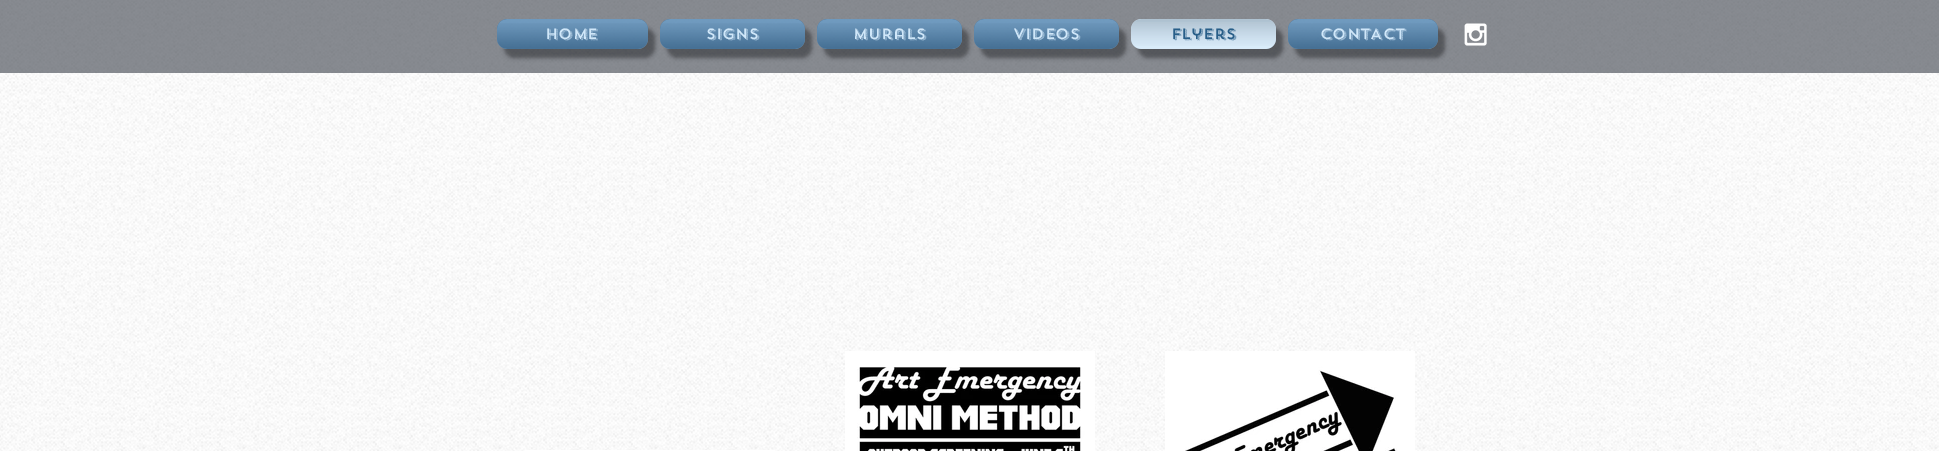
%!PS
<< /PageSize [1939 451] /PageUsesTransparency true >> setpagedevice
/rgb { 3 { 255 div 3 1 roll } repeat setrgbcolor } def
/font { [ exch dup neg 0 0 3 -1 roll 0 0 ] selectfont } def
/text { moveto show } def
/alpha { dup .setfillconstantalpha .setstrokeconstantalpha } def
/roundrect { 5 dict begin { /r /h /w /y /x } { exch def } forall
  x r add y moveto x w add y 2 copy h add r arct x w add y h add x 1 index r arct
  x y h add x y r arct x y 2 copy exch w add exch r arct closepath end } def
/shadow { 12 dict begin { /a /b /q /h /w /y /x } { exch def } forall gsave /was 0 def
  9 -2 -9 { dup b mul 4 div /e exch def 1 sub .425 mul 2.718 exch exp 1 add a .99 .min exch div /now exch def
    1 1 now sub 1 was sub div sub alpha /was now def
    w h .min e 2 mul add 0 gt { x e sub y e sub w e 2 mul add h e 2 mul add
      q e add b .6 mul add w h .min 2 div e add .min 0 .max roundrect fill } if } for grestore end } def
/picture { 5 dict begin { /h /w /y /x /name } { exch def } forall
  gsave x y translate w h scale
  w h 8 [w 0 0 h 0 0] name (r) file false 3 colorimage grestore end } def
0 .pushpdf14devicefilter
0 451 translate 1 -1 scale
4 setmiterlimit
255 255 255 rgb
0 0 1939 451 rectfill
(img_01.rgb) 0 0 1939 451 picture
0.65 alpha
72 77 86 rgb
0 0 1939 73 rectfill
gsave
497 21 moveto 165 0 rlineto 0 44 rlineto -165 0 rlineto closepath 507 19 moveto 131 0 rlineto 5.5 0 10 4.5 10 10 rcurveto 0 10 rlineto 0 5.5 -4.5 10 -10 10 rcurveto -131 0 rlineto -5.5 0 -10 -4.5 -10 -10 rcurveto 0 -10 rlineto 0 -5.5 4.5 -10 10 -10 rcurveto closepath eoclip newpath
1 alpha
0 0 0 rgb
504 28 151 30 10 2 0.37 shadow
grestore
0.73 alpha
56 127 187 rgb
497 19 151 30 10 roundrect fill
1 alpha
(img_02.rgb) 497 19 151 30 picture
(img_03.rgb) 497 23 151 26 picture
gsave
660 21 moveto 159 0 rlineto 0 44 rlineto -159 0 rlineto closepath 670 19 moveto 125 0 rlineto 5.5 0 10 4.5 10 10 rcurveto 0 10 rlineto 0 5.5 -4.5 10 -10 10 rcurveto -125 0 rlineto -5.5 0 -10 -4.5 -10 -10 rcurveto 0 -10 rlineto 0 -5.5 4.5 -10 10 -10 rcurveto closepath eoclip newpath
0 0 0 rgb
667 28 145 30 10 2 0.37 shadow
grestore
0.73 alpha
660 19 145 30 10 roundrect fill
1 alpha
(img_04.rgb) 660 19 145 30 picture
(img_05.rgb) 660 23 145 26 picture
gsave
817 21 moveto 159 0 rlineto 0 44 rlineto -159 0 rlineto closepath 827 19 moveto 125 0 rlineto 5.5 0 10 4.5 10 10 rcurveto 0 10 rlineto 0 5.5 -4.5 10 -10 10 rcurveto -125 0 rlineto -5.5 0 -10 -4.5 -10 -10 rcurveto 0 -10 rlineto 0 -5.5 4.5 -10 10 -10 rcurveto closepath eoclip newpath
0 0 0 rgb
824 28 145 30 10 2 0.37 shadow
grestore
0.73 alpha
817 19 145 30 10 roundrect fill
1 alpha
(img_06.rgb) 817 19 145 30 picture
(img_07.rgb) 817 23 145 26 picture
gsave
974 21 moveto 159 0 rlineto 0 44 rlineto -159 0 rlineto closepath 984 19 moveto 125 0 rlineto 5.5 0 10 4.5 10 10 rcurveto 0 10 rlineto 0 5.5 -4.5 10 -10 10 rcurveto -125 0 rlineto -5.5 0 -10 -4.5 -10 -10 rcurveto 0 -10 rlineto 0 -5.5 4.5 -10 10 -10 rcurveto closepath eoclip newpath
0 0 0 rgb
981 28 145 30 10 2 0.37 shadow
grestore
0.73 alpha
974 19 145 30 10 roundrect fill
1 alpha
(img_08.rgb) 974 19 145 30 picture
(img_09.rgb) 974 23 145 26 picture
0 0 0 rgb
1138 28 145 30 10 2 0.37 shadow
208 231 249 rgb
1131 19 145 30 10 roundrect fill
(img_10.rgb) 1131 19 145 26 picture
(img_11.rgb) 1131 22 145 27 picture
gsave
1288 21 moveto 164 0 rlineto 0 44 rlineto -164 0 rlineto closepath 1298 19 moveto 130 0 rlineto 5.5 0 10 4.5 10 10 rcurveto 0 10 rlineto 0 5.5 -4.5 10 -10 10 rcurveto -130 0 rlineto -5.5 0 -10 -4.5 -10 -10 rcurveto 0 -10 rlineto 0 -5.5 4.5 -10 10 -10 rcurveto closepath eoclip newpath
0 0 0 rgb
1295 28 150 30 10 2 0.37 shadow
grestore
0.73 alpha
56 127 187 rgb
1288 19 150 30 10 roundrect fill
1 alpha
(img_12.rgb) 1288 19 150 30 picture
(img_13.rgb) 1288 23 150 26 picture
(img_14.rgb) 1464 23 23 23 picture
255 255 255 rgb
525 450 250 1 rectfill
(img_15.rgb) 845 351 250 100 picture
(img_16.rgb) 1165 351 250 100 picture
/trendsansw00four-Medium 15 font
208 231 249 rgb
(HOME) 545 39 text
(SIGNS) 706 39 text
(Murals) 853 39 text
(Videos) 1013 39 text
40 94 136 rgb
(Flyers) 1171 39 text
208 231 249 rgb
(CONTACT) 1320 39 text
.poppdf14devicefilter showpage
